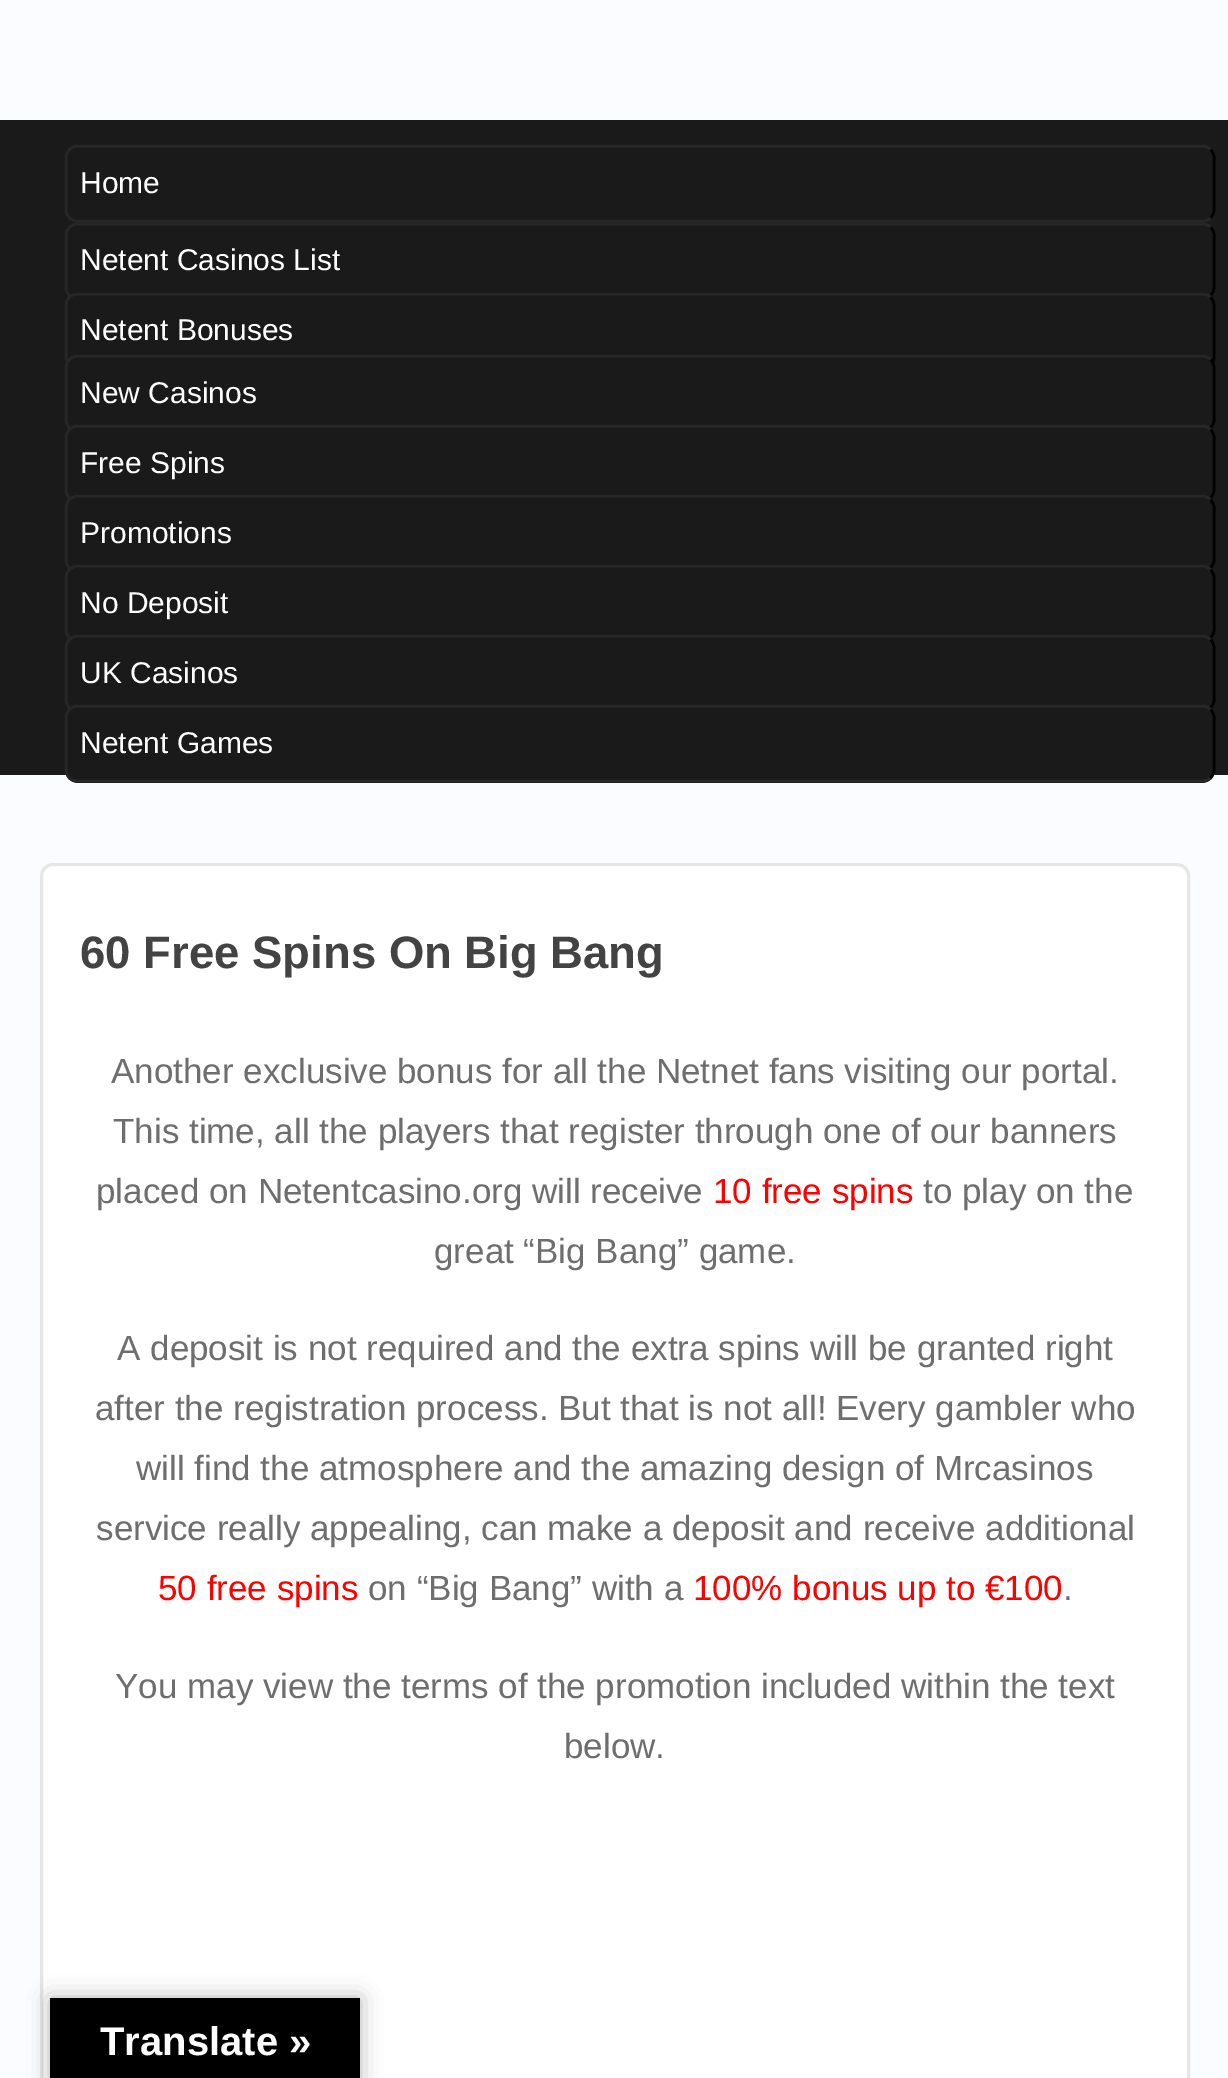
%!PS
<< /PageSize [1228 2078] /PageUsesTransparency true >> setpagedevice
/rgb { 3 { 255 div 3 1 roll } repeat setrgbcolor } def
/font { [ exch dup neg 0 0 3 -1 roll 0 0 ] selectfont } def
/text { moveto show } def
/alpha { dup .setfillconstantalpha .setstrokeconstantalpha } def
/roundrect { 5 dict begin { /r /h /w /y /x } { exch def } forall
  x r add y moveto x w add y 2 copy h add r arct x w add y h add x 1 index r arct
  x y h add x y r arct x y 2 copy exch w add exch r arct closepath end } def
/shadow { 12 dict begin { /a /b /q /h /w /y /x } { exch def } forall gsave /was 0 def
  9 -2 -9 { dup b mul 4 div /e exch def 1 sub .425 mul 2.718 exch exp 1 add a .99 .min exch div /now exch def
    1 1 now sub 1 was sub div sub alpha /was now def
    w h .min e 2 mul add 0 gt { x e sub y e sub w e 2 mul add h e 2 mul add
      q e add b .6 mul add w h .min 2 div e add .min 0 .max roundrect fill } if } for grestore end } def
0 .pushpdf14devicefilter
0 2078 translate 1 -1 scale
4 setmiterlimit
250 252 255 rgb
0 0 1228 2078 rectfill
26 26 26 rgb
0 120 1228 655 rectfill
0 0 0 rgb
2.5 setlinewidth
1210.5 149.5 moveto 2 2 3.5 5 3.5 8 rcurveto 0 52.5 rlineto 0 3 -1.5 6 -3.5 8 rcurveto stroke
39 39 39 rgb
1210.5 218 moveto -2 2 -5 3 -8 3 rcurveto -1125 0 rlineto -3 0 -6 -1 -8 -3 rcurveto -2 -2 -3.5 -5 -3.5 -8 rcurveto 0 -52.5 rlineto 0 -3 1.5 -6 3.5 -8 rcurveto 2 -2 5 -3.5 8 -3.5 rcurveto 1125 0 rlineto 3 0 6 1.5 8 3.5 rcurveto stroke
0 0 0 rgb
1210.5 227 moveto 2 2 3.5 5 3.5 8 rcurveto 0 52.5 rlineto 0 3 -1.5 6 -3.5 8 rcurveto stroke
39 39 39 rgb
1210.5 295.5 moveto -2 2 -5 3.5 -8 3.5 rcurveto -1125 0 rlineto -3 0 -6 -1.5 -8 -3.5 rcurveto -2 -2 -3.5 -5 -3.5 -8 rcurveto 0 -52.5 rlineto 0 -3 1.5 -6 3.5 -8 rcurveto 2 -2 5 -3 8 -3 rcurveto 1125 0 rlineto 3 0 6 1 8 3 rcurveto stroke
26 26 26 rgb
65 293 1150 77 13 roundrect fill
0 0 0 rgb
1210.5 297 moveto 2 2 3.5 5 3.5 8 rcurveto 0 52.5 rlineto 0 3 -1.5 6 -3.5 8 rcurveto stroke
39 39 39 rgb
1210.5 365.5 moveto -2 2 -5 3.5 -8 3.5 rcurveto -1125 0 rlineto -3 0 -6 -1.5 -8 -3.5 rcurveto -2 -2 -3.5 -5 -3.5 -8 rcurveto 0 -52.5 rlineto 0 -3 1.5 -6 3.5 -8 rcurveto 2 -2 5 -3 8 -3 rcurveto 1125 0 rlineto 3 0 6 1 8 3 rcurveto stroke
26 26 26 rgb
65 355 1150 78 13 roundrect fill
0 0 0 rgb
1210.5 359.5 moveto 2 2 3.5 5 3.5 8 rcurveto 0 52.5 rlineto 0 3 -1.5 6 -3.5 8 rcurveto stroke
39 39 39 rgb
1210.5 428 moveto -2 2 -5 3 -8 3 rcurveto -1125 0 rlineto -3 0 -6 -1 -8 -3 rcurveto -2 -2 -3.5 -5 -3.5 -8 rcurveto 0 -52.5 rlineto 0 -3 1.5 -6 3.5 -8 rcurveto 2 -2 5 -3.5 8 -3.5 rcurveto 1125 0 rlineto 3 0 6 1.5 8 3.5 rcurveto stroke
26 26 26 rgb
65 425 1150 78 13 roundrect fill
0 0 0 rgb
1210.5 429.5 moveto 2 2 3.5 5 3.5 8 rcurveto 0 52.5 rlineto 0 3 -1.5 6 -3.5 8 rcurveto stroke
39 39 39 rgb
1210.5 498 moveto -2 2 -5 3 -8 3 rcurveto -1125 0 rlineto -3 0 -6 -1 -8 -3 rcurveto -2 -2 -3.5 -5 -3.5 -8 rcurveto 0 -52.5 rlineto 0 -3 1.5 -6 3.5 -8 rcurveto 2 -2 5 -3.5 8 -3.5 rcurveto 1125 0 rlineto 3 0 6 1.5 8 3.5 rcurveto stroke
26 26 26 rgb
65 495 1150 78 13 roundrect fill
0 0 0 rgb
1210.5 499.5 moveto 2 2 3.5 5 3.5 8 rcurveto 0 52.5 rlineto 0 3 -1.5 6 -3.5 8 rcurveto stroke
39 39 39 rgb
1210.5 568 moveto -2 2 -5 3 -8 3 rcurveto -1125 0 rlineto -3 0 -6 -1 -8 -3 rcurveto -2 -2 -3.5 -5 -3.5 -8 rcurveto 0 -52.5 rlineto 0 -3 1.5 -6 3.5 -8 rcurveto 2 -2 5 -3.5 8 -3.5 rcurveto 1125 0 rlineto 3 0 6 1.5 8 3.5 rcurveto stroke
26 26 26 rgb
65 565 1150 78 13 roundrect fill
0 0 0 rgb
1210.5 569.5 moveto 2 2 3.5 5 3.5 8 rcurveto 0 52.5 rlineto 0 3 -1.5 6 -3.5 8 rcurveto stroke
39 39 39 rgb
1210.5 638 moveto -2 2 -5 3 -8 3 rcurveto -1125 0 rlineto -3 0 -6 -1 -8 -3 rcurveto -2 -2 -3.5 -5 -3.5 -8 rcurveto 0 -52.5 rlineto 0 -3 1.5 -6 3.5 -8 rcurveto 2 -2 5 -3.5 8 -3.5 rcurveto 1125 0 rlineto 3 0 6 1.5 8 3.5 rcurveto stroke
26 26 26 rgb
65 635 1150 78 13 roundrect fill
0 0 0 rgb
1210.5 639.5 moveto 2 2 3.5 5 3.5 8 rcurveto 0 52.5 rlineto 0 3 -1.5 6 -3.5 8 rcurveto stroke
39 39 39 rgb
1210.5 708 moveto -2 2 -5 3 -8 3 rcurveto -1125 0 rlineto -3 0 -6 -1 -8 -3 rcurveto -2 -2 -3.5 -5 -3.5 -8 rcurveto 0 -52.5 rlineto 0 -3 1.5 -6 3.5 -8 rcurveto 2 -2 5 -3.5 8 -3.5 rcurveto 1125 0 rlineto 3 0 6 1.5 8 3.5 rcurveto stroke
26 26 26 rgb
65 705 1150 78 13 roundrect fill
0 0 0 rgb
1210.5 709.5 moveto 2 2 3.5 5 3.5 8 rcurveto 0 52.5 rlineto 0 3 -1.5 6 -3.5 8 rcurveto stroke
39 39 39 rgb
1210.5 778 moveto -2 2 -5 3 -8 3 rcurveto -1125 0 rlineto -3 0 -6 -1 -8 -3 rcurveto -2 -2 -3.5 -5 -3.5 -8 rcurveto 0 -52.5 rlineto 0 -3 1.5 -6 3.5 -8 rcurveto 2 -2 5 -3.5 8 -3.5 rcurveto 1125 0 rlineto 3 0 6 1.5 8 3.5 rcurveto stroke
255 255 255 rgb
41.5 864.5 1147 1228 11.5 roundrect gsave fill grestore
230 230 230 rgb
3 setlinewidth
stroke
0 0 0 rgb
50 1998 310 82 0 11 0.3 shadow
50 1998 310 80 rectfill
/LiberationSans-Regular 30 font
255 255 255 rgb
(Home) 80 193 text
(Netent Casinos List) 80 270 text
(Netent Bonuses) 80 340 text
(New Casinos) 80 403 text
(Free Spins) 80 473 text
(Promotions) 80 543 text
(No Deposit) 80 613 text
(UK Casinos) 80 683 text
(Netent Games) 80 753 text
/LiberationSans-Bold 45.5 font
67 67 67 rgb
(60 Free Spins On Big Bang) 80 968 text
/LiberationSans-Regular 35 font
110 110 110 rgb
(Another exclusive bonus for all the Netnet fans visiting our portal.) 111 1083 text
(This time, all the players that register through one of our banners) 113 1143 text
(placed on Netentcasino.org will receive) 96 1203 text
255 0 0 rgb
(10 free spins) 713 1203 text
110 110 110 rgb
(to play on the) 923 1203 text
(great “Big Bang” game.) 434 1263 text
(A deposit is not required and the extra spins will be granted right) 117 1360 text
(after the registration process. But that is not all! Every gambler who) 95 1420 text
(will find the atmosphere and the amazing design of Mrcasinos) 136 1480 text
(service really appealing, can make a deposit and receive additional) 96 1540 text
255 0 0 rgb
(50 free spins) 158 1600 text
110 110 110 rgb
(on “Big Bang” with a) 368 1600 text
255 0 0 rgb
(100% bonus up to €100) 693 1600 text
110 110 110 rgb
(.) 1063 1600 text
(You may view the terms of the promotion included within the text) 115 1698 text
(below.) 564 1758 text
/LiberationSans-Bold 40 font
255 255 255 rgb
(Translate ») 100 2055 text
.poppdf14devicefilter showpage
